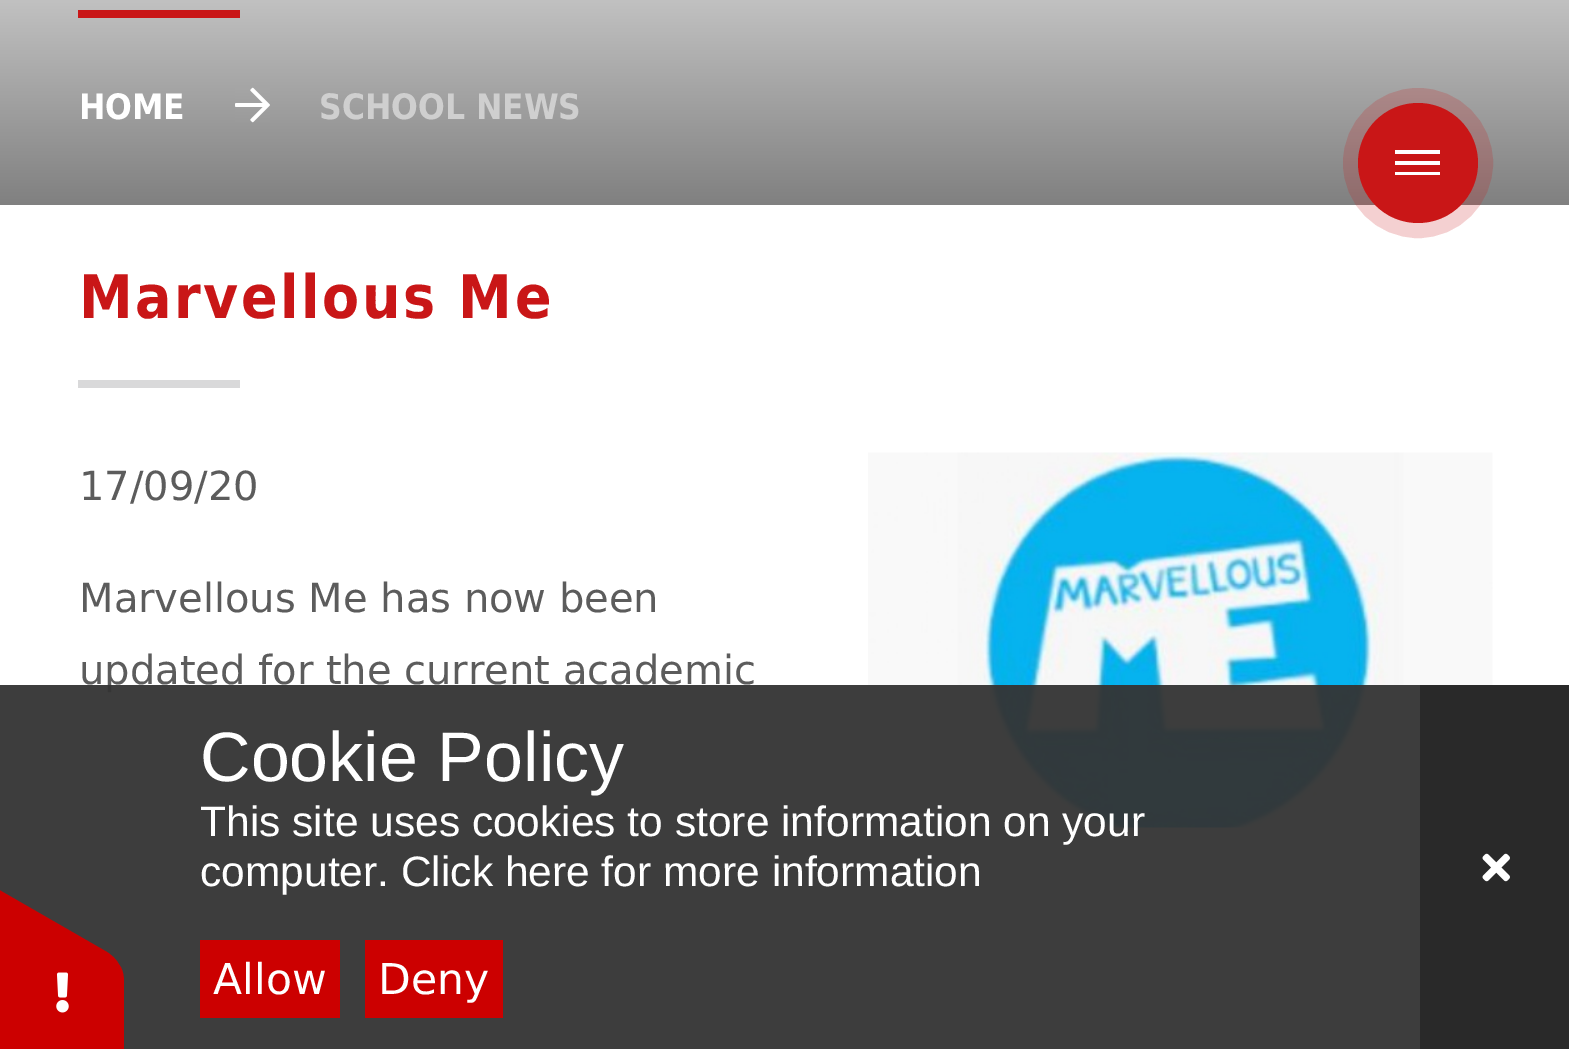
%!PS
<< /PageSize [1569 1049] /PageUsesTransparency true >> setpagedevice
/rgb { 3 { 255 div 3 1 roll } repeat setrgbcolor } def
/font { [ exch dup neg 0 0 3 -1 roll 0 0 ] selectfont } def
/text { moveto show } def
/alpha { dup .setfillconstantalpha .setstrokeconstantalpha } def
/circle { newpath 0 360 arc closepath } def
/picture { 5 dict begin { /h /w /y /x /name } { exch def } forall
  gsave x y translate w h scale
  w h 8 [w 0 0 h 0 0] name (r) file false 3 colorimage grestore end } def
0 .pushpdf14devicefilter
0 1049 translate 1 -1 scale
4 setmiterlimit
255 255 255 rgb
0 0 1569 1049 rectfill
gsave 0 0 moveto 1569 0 rlineto 0 205 rlineto -1569 0 rlineto closepath clip newpath
<< /ShadingType 2 /ColorSpace /DeviceRGB /Coords [785 -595 785 205] /Extend [true true] /Function << /FunctionType 3 /Domain [0 1] /Functions [<< /FunctionType 2 /Domain [0 1] /C0 [0.502 0.502 0.502] /C1 [1 1 1] /N 1 >> << /FunctionType 2 /Domain [0 1] /C0 [1 1 1] /C1 [0.502 0.502 0.502] /N 1 >>] /Bounds [0.5] /Encode [0 1 0 1] >> >> shfill grestore
201 22 23 rgb
78 10 162 8 rectfill
(img_01.rgb) 235 87 35 36 picture
1418 163 60 circle fill
0.2 alpha
15 setlinewidth
1418 163 67.5 circle stroke
1 alpha
255 255 255 rgb
1395 150 45 4 rectfill
1395 161 45 4 rectfill
1395 172 45 3 rectfill
217 217 218 rgb
78 380 162 8 rectfill
(img_02.rgb) 868 452 625 376 picture
41 41 41 rgb
1420 685 149 364 rectfill
(img_04.rgb) 1482 853 28 29 picture
/DejaVuSans-Bold 35 font
255 255 255 rgb
(HOME) 79 119 text
207 207 207 rgb
(SCHOOL NEWS) 319 119 text
/DejaVuSans-Bold 60 font
201 22 23 rgb
79 318 moveto 2.5 0 (Marvellous Me) ashow
/DejaVuSans-Regular 40 font
92 92 92 rgb
(17/09/20) 79 500 text
(Marvellous Me has now been) 79 612 text
(updated for the current academic) 79 684 text
0.95 alpha
51 51 51 rgb
0 685 1420 364 rectfill
1 alpha
204 0 0 rgb
124 982 moveto 0 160 rlineto 0 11 -4 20 -10 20 rcurveto -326 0 rlineto -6 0 -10 -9 -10 -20 rcurveto 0 -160 rlineto 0 -11 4 -20 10 -20 rcurveto 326 0 rlineto 6 0 10 9 10 20 rcurveto closepath fill
-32 872 moveto 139 80 rlineto 9 6 15 14 12 19 rcurveto -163 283 rlineto -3 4 -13 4 -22 -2 rcurveto -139 -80 rlineto -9 -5 -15 -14 -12 -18 rcurveto 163 -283 rlineto 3 -5 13 -4 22 1 rcurveto closepath fill
(img_03.rgb) 56 972 13 41 picture
/LiberationSans-Regular 70 font
255 255 255 rgb
(Cookie Policy) 200 781 text
/LiberationSans-Regular 42.5 font
(This site uses cookies to store information on your) 200 836 text
(computer. Click here for more information) 200 886 text
204 0 0 rgb
200 940 140 78 rectfill
/DejaVuSans-Regular 42.5 font
255 255 255 rgb
(Allow) 213 994 text
204 0 0 rgb
365 940 138 78 rectfill
255 255 255 rgb
(Deny) 378 994 text
.poppdf14devicefilter showpage
